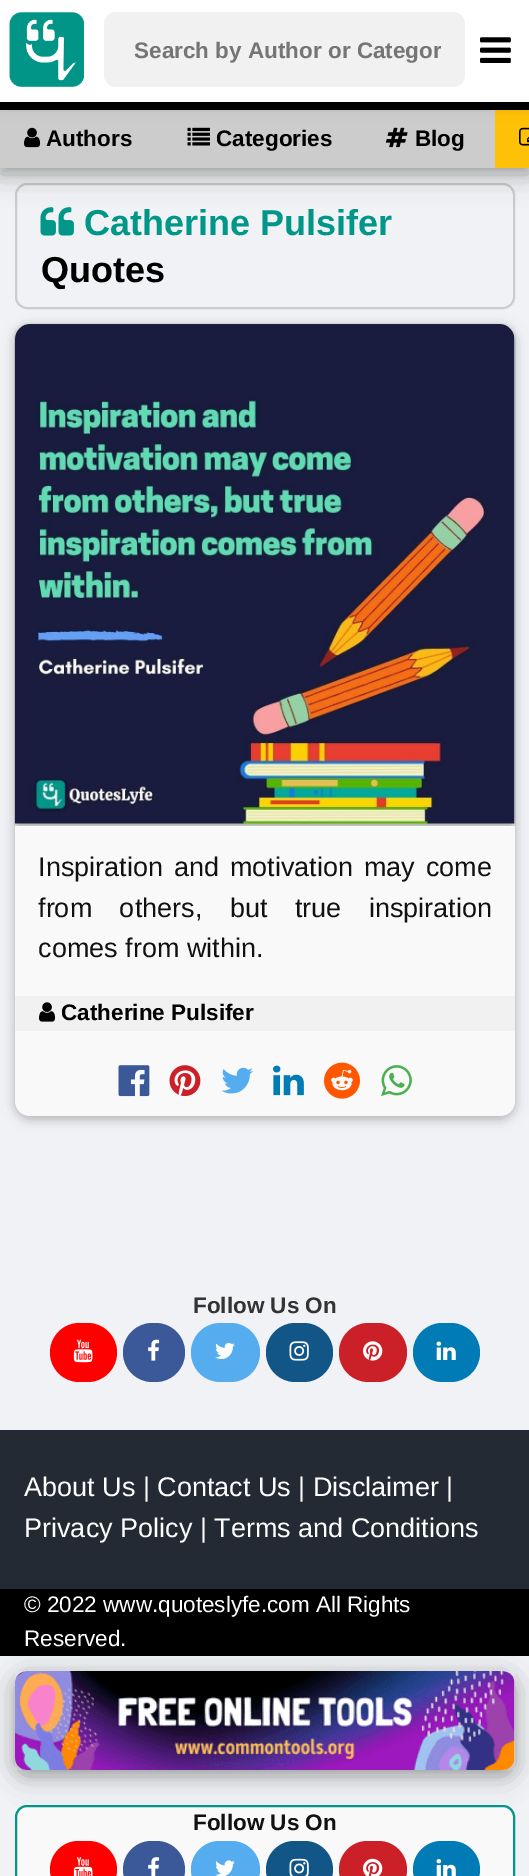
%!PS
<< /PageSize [529 1876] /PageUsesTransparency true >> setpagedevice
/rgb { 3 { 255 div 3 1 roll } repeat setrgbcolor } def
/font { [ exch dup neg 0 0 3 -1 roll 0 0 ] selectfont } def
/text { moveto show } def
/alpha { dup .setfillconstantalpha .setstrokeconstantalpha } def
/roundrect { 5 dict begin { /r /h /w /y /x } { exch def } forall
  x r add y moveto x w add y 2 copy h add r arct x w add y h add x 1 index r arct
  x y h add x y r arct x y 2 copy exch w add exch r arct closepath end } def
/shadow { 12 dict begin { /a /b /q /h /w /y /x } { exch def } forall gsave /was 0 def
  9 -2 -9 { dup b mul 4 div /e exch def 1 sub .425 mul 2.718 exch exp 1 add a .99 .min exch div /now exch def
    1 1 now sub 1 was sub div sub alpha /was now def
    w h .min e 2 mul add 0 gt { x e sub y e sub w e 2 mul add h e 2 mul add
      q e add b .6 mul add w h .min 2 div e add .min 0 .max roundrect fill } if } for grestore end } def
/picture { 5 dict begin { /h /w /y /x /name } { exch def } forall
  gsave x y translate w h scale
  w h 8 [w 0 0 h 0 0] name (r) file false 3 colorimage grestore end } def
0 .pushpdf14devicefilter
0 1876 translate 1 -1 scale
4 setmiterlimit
240 242 245 rgb
0 0 529 1876 rectfill
204 204 204 rgb
2 setlinewidth
16 184 498 124 11 roundrect stroke
(img_07.rgb) 40 207 34 29 picture
0 0 0 rgb
0 107 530 67 0 15 0.19 shadow
0 107 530 67 0 7.5 0.2 shadow
204 204 204 rgb
0 110 495 58 rectfill
0 0 0 rgb
0 102 529 8 rectfill
(img_03.rgb) 24 127 17 21 picture
(img_04.rgb) 187 127 23 19 picture
(img_05.rgb) 385 127 23 21 picture
255 193 7 rgb
495 110 34 58 rectfill
(img_06.rgb) 519 127 10 19 picture
0 0 0 rgb
0 3 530 102 0 7.5 0.12 shadow
0 3 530 102 0 4 0.16 shadow
255 255 255 rgb
0 0 529 102 rectfill
(img_01.rgb) 9 12 75 75 picture
241 241 241 rgb
104 12 361 75 12 roundrect fill
(img_02.rgb) 480 37 31 26 picture
0 0 0 rgb
15 327 500 792 15 7.5 0.12 shadow
15 327 500 792 15 4 0.16 shadow
249 249 249 rgb
15 324 500 792 15 roundrect fill
241 241 241 rgb
30 324 moveto 470 0 rlineto 8.5 0 15 6.5 15 15 rcurveto 0 485 rlineto -500 0 rlineto 0 -485 rlineto 0 -8.5 6.5 -15 15 -15 rcurveto closepath fill
237 237 237 rgb
15 824 500 2 rectfill
(img_08.rgb) 14 322 502 504 picture
241 241 241 rgb
15 996 500 35 rectfill
(img_09.rgb) 39 1002 17 20 picture
(img_10.rgb) 118 1065 32 32 picture
(img_11.rgb) 169 1065 32 32 picture
(img_12.rgb) 221 1067 32 27 picture
(img_13.rgb) 273 1065 31 31 picture
(img_14.rgb) 324 1062 36 37 picture
(img_15.rgb) 381 1065 31 32 picture
255 0 0 rgb
50 1323 67 59 29.5 roundrect fill
(img_16.rgb) 73 1339 20 24 picture
59 89 152 rgb
123 1323 62 59 29.5 roundrect fill
(img_17.rgb) 148 1339 12 22 picture
85 172 238 rgb
191 1323 69 59 29.5 roundrect fill
(img_18.rgb) 215 1342 20 17 picture
18 86 136 rgb
266 1323 67 59 29.5 roundrect fill
(img_19.rgb) 289 1341 20 20 picture
203 32 39 rgb
339 1323 68 59 29.5 roundrect fill
(img_20.rgb) 363 1341 20 20 picture
0 123 181 rgb
413 1323 67 59 29.5 roundrect fill
(img_21.rgb) 436 1341 20 19 picture
35 42 52 rgb
0 1430 529 159 rectfill
0 0 0 rgb
0 1589 529 67 rectfill
15 1677 500 99 12 15 0.19 shadow
15 1677 500 99 12 7.5 0.2 shadow
(img_22.rgb) 15 1671 500 99 picture
249 249 249 rgb
16 1806 498 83 11 roundrect gsave fill grestore
0 150 136 rgb
stroke
255 0 0 rgb
50 1841 67 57 28.5 roundrect fill
(img_23.rgb) 73 1857 20 19 picture
59 89 152 rgb
123 1841 62 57 28.5 roundrect fill
(img_24.rgb) 148 1857 12 19 picture
85 172 238 rgb
191 1841 69 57 28.5 roundrect fill
(img_25.rgb) 215 1860 20 16 picture
18 86 136 rgb
266 1841 67 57 28.5 roundrect fill
(img_26.rgb) 289 1858 20 18 picture
203 32 39 rgb
339 1841 68 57 28.5 roundrect fill
(img_27.rgb) 363 1858 20 18 picture
0 123 181 rgb
413 1841 67 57 28.5 roundrect fill
(img_28.rgb) 436 1859 20 17 picture
gsave
128 38 313 25 rectclip
/LiberationSans-Bold 22.5 font
117 117 117 rgb
(Search by Author or Categor) 134 58 text
grestore
/LiberationSans-Bold 22.5 font
0 0 0 rgb
(Authors) 46 146 text
(Categories) 216 146 text
(Blog) 415 146 text
/LiberationSans-Bold 36 font
0 150 136 rgb
(Catherine Pulsifer) 84 235 text
0 0 0 rgb
(Quotes) 41 282 text
/LiberationSans-Regular 27 font
17 17 17 rgb
38 876 moveto 3.5 0 32 (Inspiration and motivation may come) widthshow
38 917 moveto 20 0 32 (from others, but true inspiration) widthshow
(comes from within.) 38 957 text
/LiberationSans-Bold 22.5 font
0 0 0 rgb
(Catherine Pulsifer) 61 1020 text
51 51 51 rgb
(Follow Us On) 193 1313 text
/LiberationSans-Regular 27 font
255 255 255 rgb
(About Us | Contact Us | Disclaimer |) 24 1496 text
(Privacy Policy | Terms and Conditions) 24 1537 text
/LiberationSans-Regular 22.5 font
(© 2022 www.quoteslyfe.com All Rights) 24 1612 text
(Reserved.) 24 1646 text
/LiberationSans-Bold 22.5 font
17 17 17 rgb
(Follow Us On) 193 1830 text
.poppdf14devicefilter showpage
